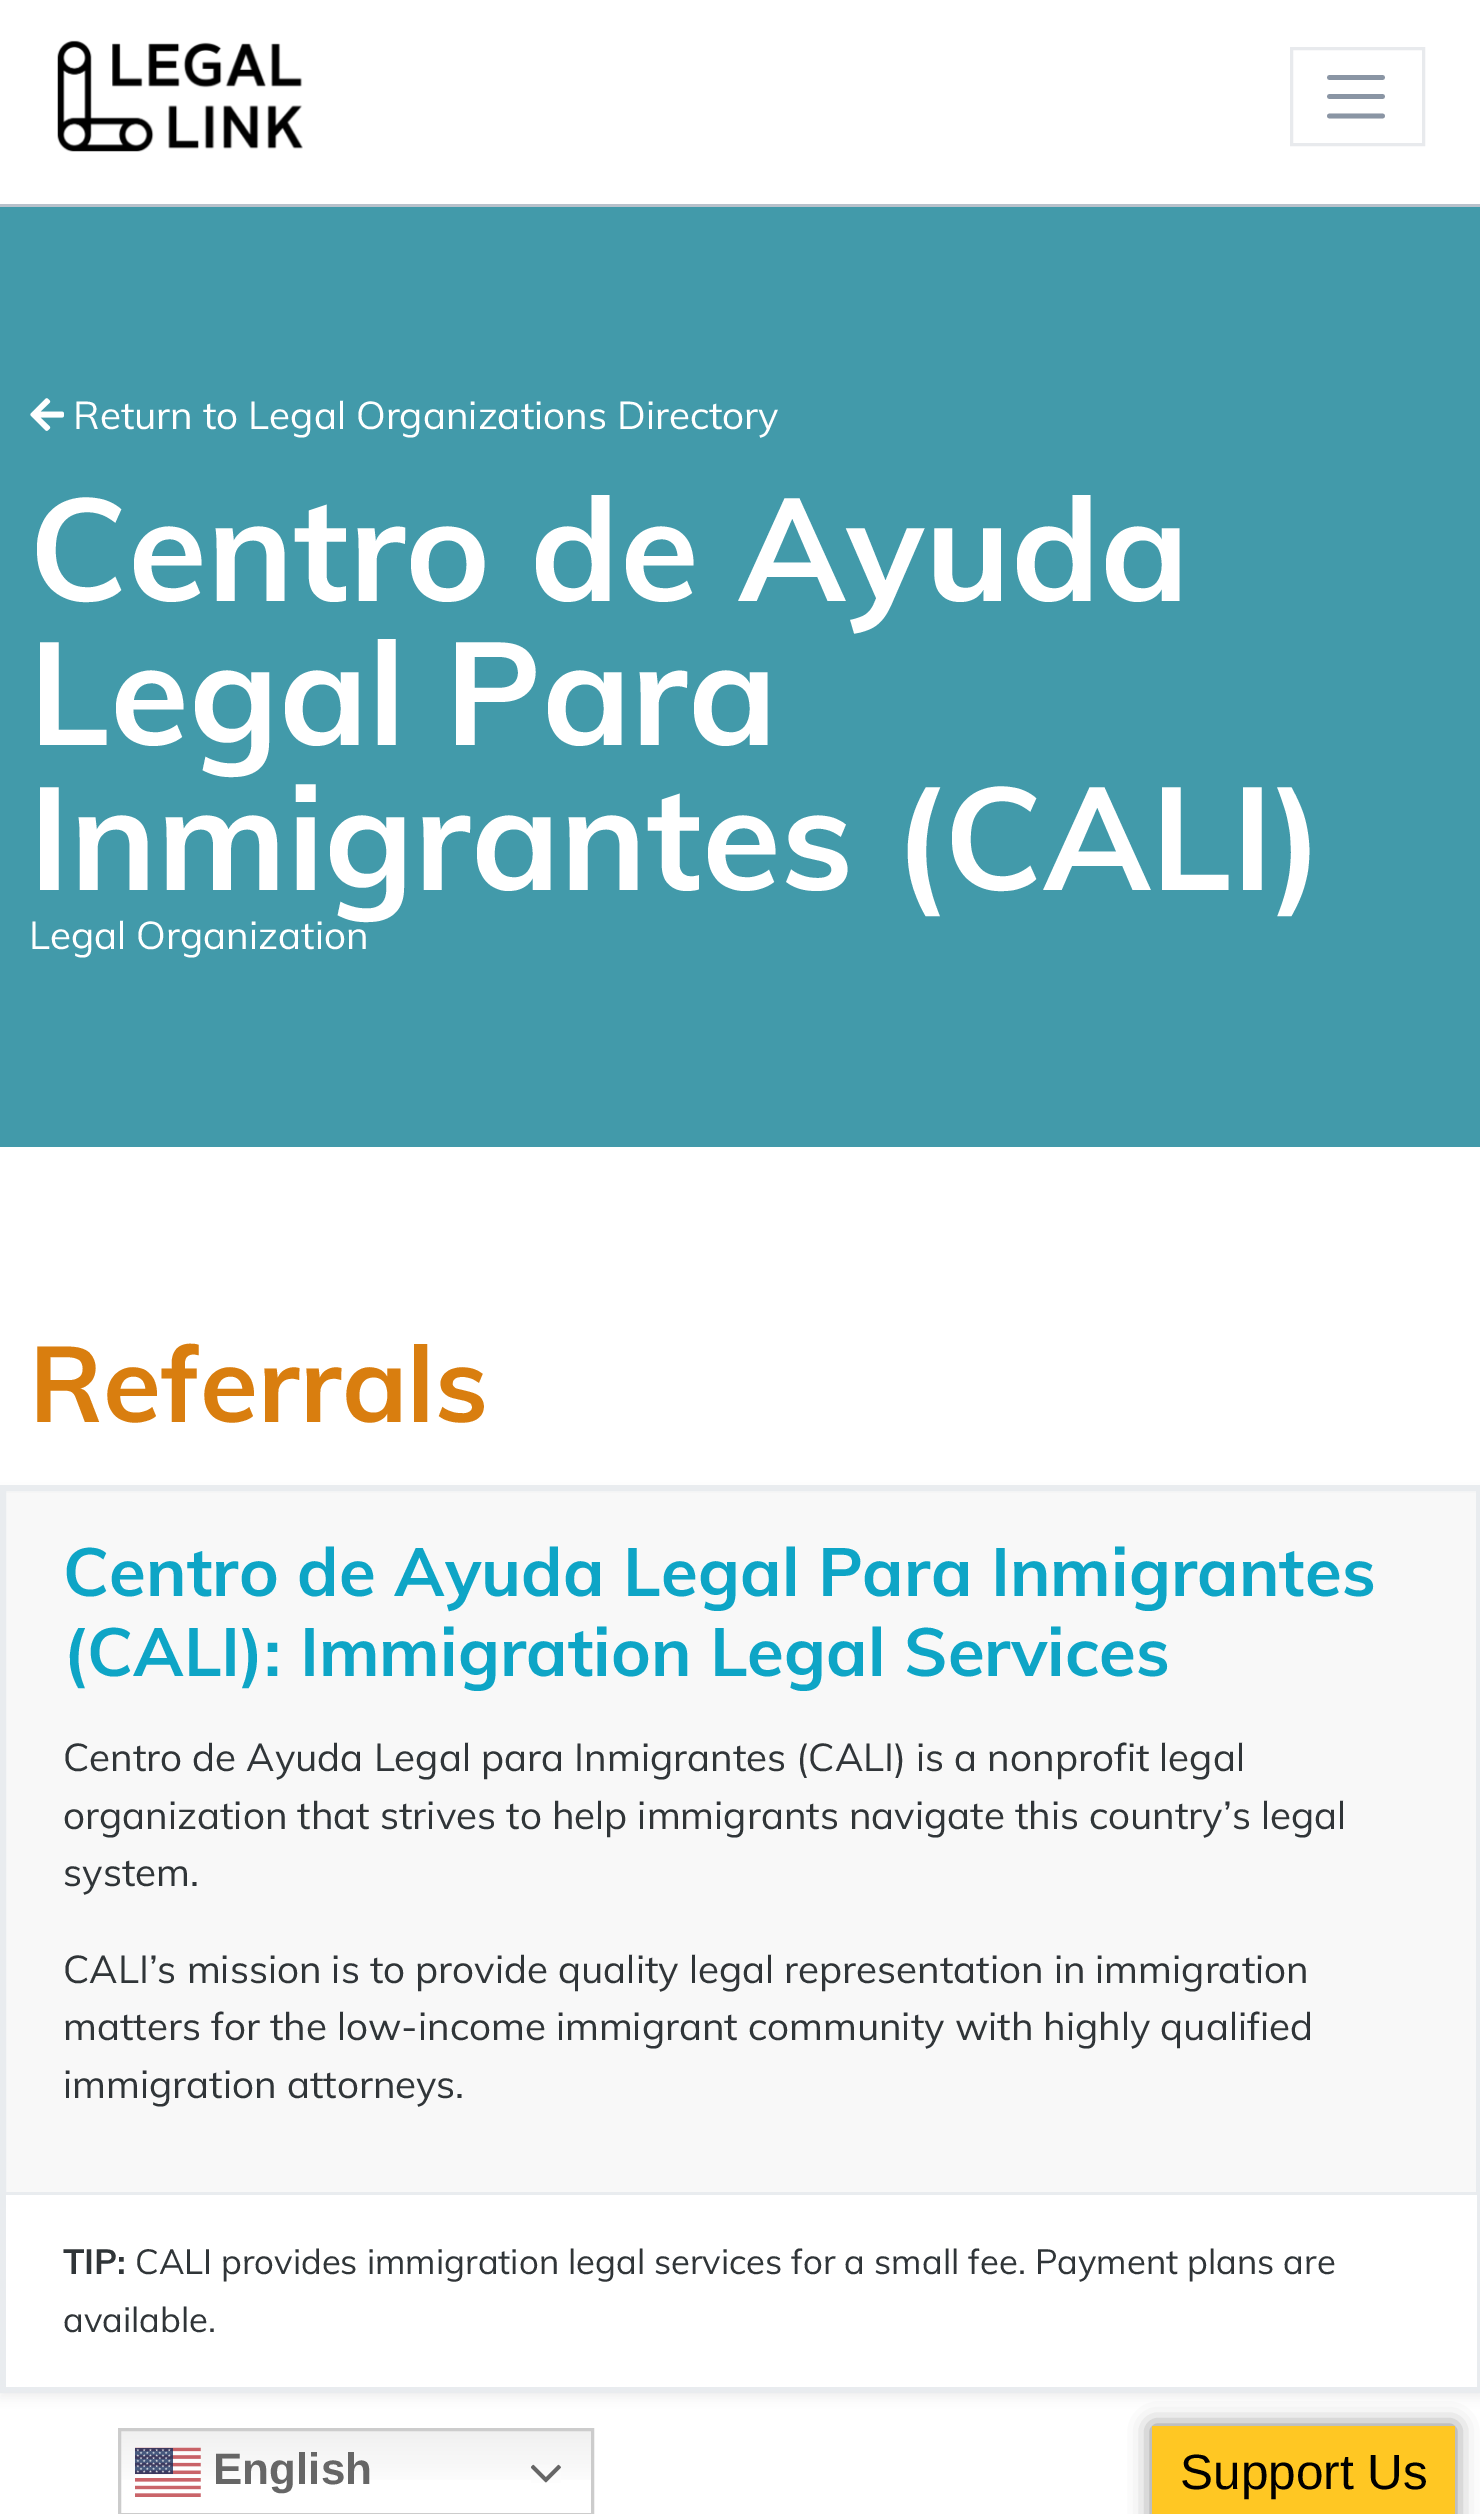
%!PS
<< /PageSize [1480 2514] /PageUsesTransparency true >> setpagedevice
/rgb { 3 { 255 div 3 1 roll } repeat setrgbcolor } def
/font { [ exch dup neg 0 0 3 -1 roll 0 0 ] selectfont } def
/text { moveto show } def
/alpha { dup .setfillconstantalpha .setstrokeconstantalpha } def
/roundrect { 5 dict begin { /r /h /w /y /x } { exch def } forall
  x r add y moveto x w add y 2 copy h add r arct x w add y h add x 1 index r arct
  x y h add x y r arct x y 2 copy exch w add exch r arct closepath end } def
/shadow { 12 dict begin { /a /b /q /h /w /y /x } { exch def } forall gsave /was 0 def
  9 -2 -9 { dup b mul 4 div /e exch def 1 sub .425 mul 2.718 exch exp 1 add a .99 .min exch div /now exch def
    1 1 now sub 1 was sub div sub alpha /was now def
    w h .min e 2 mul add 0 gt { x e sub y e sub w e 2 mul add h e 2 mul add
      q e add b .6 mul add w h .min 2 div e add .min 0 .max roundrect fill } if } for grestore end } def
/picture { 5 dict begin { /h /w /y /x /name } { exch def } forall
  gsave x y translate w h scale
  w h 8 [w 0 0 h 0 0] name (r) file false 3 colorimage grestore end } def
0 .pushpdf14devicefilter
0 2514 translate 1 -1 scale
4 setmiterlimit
255 255 255 rgb
0 0 1480 2514 rectfill
184 193 203 rgb
0 204 1480 3 rectfill
(img_01.rgb) 57 40 246 112 picture
232 234 237 rgb
3 setlinewidth
1291.5 48.5 132 96 rectstroke
138 149 164 rgb
4.8 setlinewidth
1 setlinecap
1329.5 77.5 moveto 53 0 rlineto 1329.5 96.5 moveto 53 0 rlineto 1329.5 116 moveto 53 0 rlineto stroke
66 154 170 rgb
0 207 1480 940 rectfill
(img_02.rgb) 30 398 34 33 picture
52 58 64 rgb
0 1491 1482 907 0 5 0.07 shadow
248 248 248 rgb
6 1493 1470 699 rectfill
233 236 239 rgb
6 setlinewidth
0 setlinecap
3 1488 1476 902 rectstroke
255 255 255 rgb
6 2195 1471 192 rectfill
233 236 239 rgb
6 2192 1471 3 rectfill
gsave 121 2431 moveto 470 0 rlineto 0 49 rlineto -470 0 rlineto closepath clip newpath
<< /ShadingType 2 /ColorSpace /DeviceRGB /Coords [356 2428 356 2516] /Extend [true true] /Function << /FunctionType 3 /Domain [0 1] /Functions [<< /FunctionType 2 /Domain [0 1] /C0 [0.937 0.937 0.937] /C1 [1 1 1] /N 1 >> << /FunctionType 2 /Domain [0 1] /C0 [1 1 1] /C1 [1 1 1] /N 1 >>] /Bounds [0.7] /Encode [0 1 0 1] >> >> shfill grestore
204 204 204 rgb
3 setlinewidth
119.5 2429.5 473 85 rectstroke
(img_03.rgb) 135 2447 66 50 picture
(img_04.rgb) 531 2464 30 19 picture
0 0 0 rgb
1152 2426 303 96 0 11 0.5 shadow
255 199 35 rgb
1152 2426 303 88 rectfill
/Muli-Regular 38.5 font
255 255 255 rgb
(Return to Legal Organizations Directory) 73 429 text
/Muli-Bold 144.4 font
(Centro de Ayuda) 29 601 text
(Legal Para) 29 745 text
(Inmigrantes \(CALI\)) 29 890 text
/Muli-Regular 38.5 font
(Legal Organization) 29 949 text
/Muli-Bold 106 font
217 126 15 rgb
(Referrals) 29 1422 text
/Muli-Bold 67.4 font
14 165 198 rgb
(Centro de Ayuda Legal Para Inmigrantes) 63 1596 text
(\(CALI\): Immigration Legal Services) 63 1676 text
/Muli-Regular 38.5 font
48 53 56 rgb
(Centro de Ayuda Legal para Inmigrantes \(CALI\) is a nonprofit legal) 63 1771 text
(organization that strives to help immigrants navigate this country’s legal) 63 1829 text
(system.) 63 1886 text
(CALI’s mission is to provide quality legal representation in immigration) 63 1983 text
(matters for the low-income immigrant community with highly qualified) 63 2040 text
(immigration attorneys.) 63 2098 text
/Muli-Bold 34.65 font
(TIP:) 63 2274 text
/Muli-Regular 34.65 font
(CALI provides immigration legal services for a small fee. Payment plans are) 135 2274 text
(available.) 63 2332 text
/LiberationSans-Bold 44 font
102 102 102 rgb
(English) 213 2484 text
/LiberationSans-Regular 49.5 font
0 0 0 rgb
(Support Us) 1180 2489 text
.poppdf14devicefilter showpage
